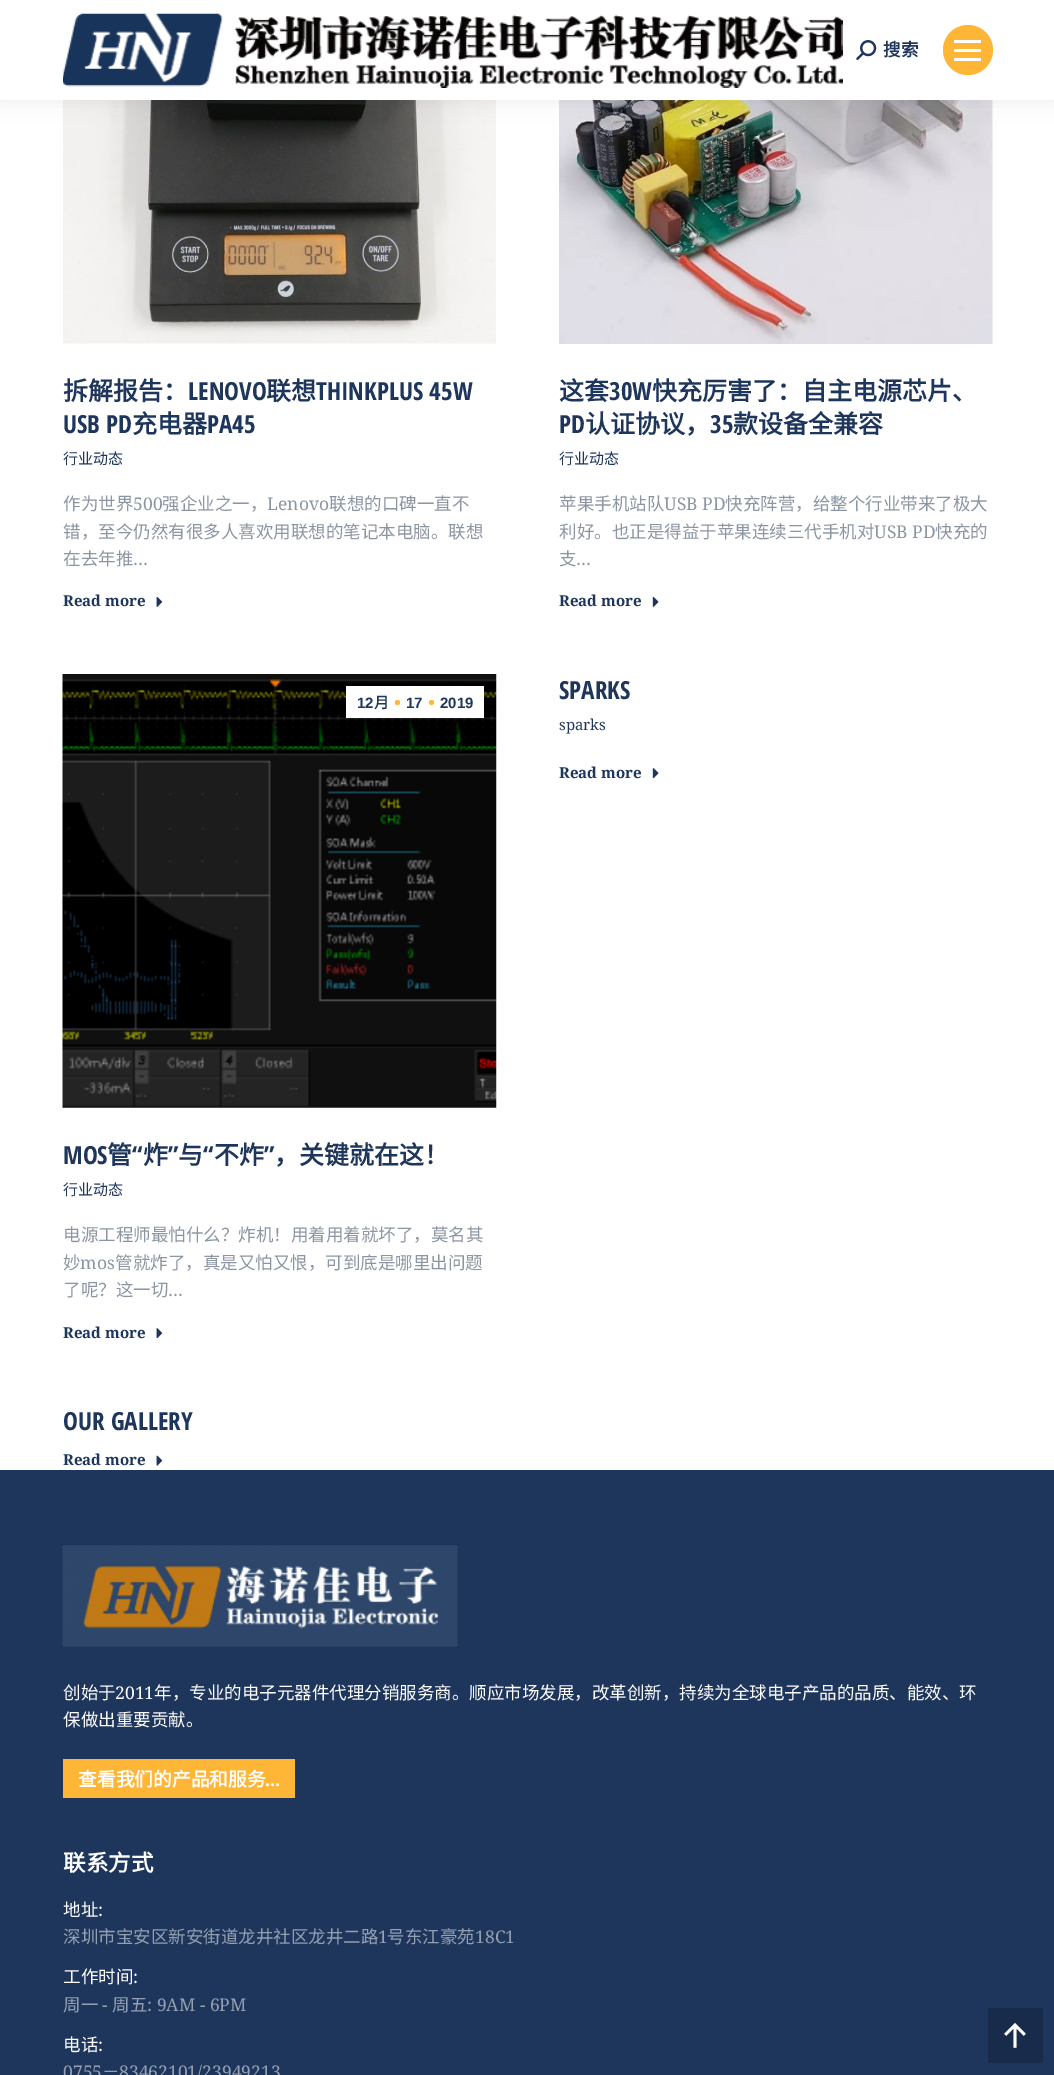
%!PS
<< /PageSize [1054 2075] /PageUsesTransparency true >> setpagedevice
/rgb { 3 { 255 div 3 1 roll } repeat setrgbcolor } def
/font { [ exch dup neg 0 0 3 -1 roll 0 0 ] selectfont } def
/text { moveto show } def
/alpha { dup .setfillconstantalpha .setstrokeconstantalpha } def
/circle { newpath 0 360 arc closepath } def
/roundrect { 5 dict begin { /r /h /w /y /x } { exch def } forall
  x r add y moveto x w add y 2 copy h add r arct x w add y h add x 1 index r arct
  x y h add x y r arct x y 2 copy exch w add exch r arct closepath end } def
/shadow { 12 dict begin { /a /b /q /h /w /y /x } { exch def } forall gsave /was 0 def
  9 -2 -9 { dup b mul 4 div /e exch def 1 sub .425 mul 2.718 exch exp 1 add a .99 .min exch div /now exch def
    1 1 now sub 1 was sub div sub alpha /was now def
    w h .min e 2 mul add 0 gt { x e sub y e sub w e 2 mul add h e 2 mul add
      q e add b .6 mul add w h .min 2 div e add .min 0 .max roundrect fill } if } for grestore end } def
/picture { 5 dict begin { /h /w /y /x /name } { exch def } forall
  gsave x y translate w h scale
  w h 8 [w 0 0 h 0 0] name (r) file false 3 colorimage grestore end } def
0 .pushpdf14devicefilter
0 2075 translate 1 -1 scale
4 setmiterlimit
255 255 255 rgb
0 0 1054 2075 rectfill
(img_03.rgb) 63 100 433 244 picture
(img_05.rgb) 559 100 434 244 picture
0 0 0 rgb
-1 -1 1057 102 0 9.5 0.07 shadow
255 255 255 rgb
0 0 1054 100 rectfill
(img_01.rgb) 63 13 780 75 picture
(img_02.rgb) 856 40 21 20 picture
255 181 54 rgb
968 50 25 circle fill
255 255 255 rgb
954 49 27 3 rectfill
954 40 27 3 rectfill
954 58 27 3 rectfill
(img_04.rgb) 156 596 7 11 picture
(img_06.rgb) 652 596 7 11 picture
(img_07.rgb) 62 674 435 434 picture
346 686 138 32 rectfill
255 181 54 rgb
397.5 702.5 2.5 circle fill
431.5 702.5 2.5 circle fill
(img_08.rgb) 156 1328 7 11 picture
(img_09.rgb) 652 768 7 11 picture
(img_10.rgb) 156 1455 7 11 picture
31 54 92 rgb
0 1470 1054 605 rectfill
(img_11.rgb) 62 1545 396 102 picture
255 181 54 rgb
63 1759 232 39 rectfill
25 43 74 rgb
988 2008 55 55 rectfill
(img_12.rgb) 1004 2023 22 25 picture
/NotoSansCJKSC-Bold 17.5 font
31 54 92 rgb
(搜索) 883 56 text
/NotoSansCJKSC-Bold 25 font
(拆解报告：) 63 400 text
/OpenSansCondensed-Bold 25 font
(LENOVO) 188 400 text
/NotoSansCJKSC-Bold 25 font
(联想) 266 400 text
/OpenSansCondensed-Bold 25 font
(THINKPLUS 45W) 316 400 text
(USB PD) 63 433 text
/NotoSansCJKSC-Bold 25 font
(充电器) 132 433 text
/OpenSansCondensed-Bold 25 font
(PA45) 207 433 text
/NotoSansCJKSC-Regular 15 font
(行业动态) 63 464 text
/NotoSansCJKSC-Regular 17.5 font
140 149 162 rgb
(作为世界) 63 510 text
/NotoSerif-Regular 17.5 font
(500) 133 510 text
/NotoSansCJKSC-Regular 17.5 font
(强企业之一，) 162 510 text
/NotoSerif-Regular 17.5 font
(Lenovo) 267 510 text
/NotoSansCJKSC-Regular 17.5 font
(联想的口碑一直不) 329 510 text
(错，至今仍然有很多人喜欢用联想的笔记本电脑。联想) 63 538 text
(在去年推) 63 565 text
/NotoSerif-Regular 17.5 font
(…) 133 565 text
/NotoSerif-Bold 15 font
31 54 92 rgb
(Read more) 63 606 text
/NotoSansCJKSC-Bold 25 font
(这套) 559 400 text
/OpenSansCondensed-Bold 25 font
(30W) 609 400 text
/NotoSansCJKSC-Bold 25 font
(快充厉害了：自主电源芯片、) 652 400 text
/OpenSansCondensed-Bold 25 font
(PD) 559 433 text
/NotoSansCJKSC-Bold 25 font
(认证协议，) 585 433 text
/OpenSansCondensed-Bold 25 font
(35) 710 433 text
/NotoSansCJKSC-Bold 25 font
(款设备全兼容) 733 433 text
/NotoSansCJKSC-Regular 15 font
(行业动态) 559 464 text
/NotoSansCJKSC-Regular 17.5 font
140 149 162 rgb
(苹果手机站队) 559 510 text
/NotoSerif-Regular 17.5 font
(USB PD) 664 510 text
/NotoSansCJKSC-Regular 17.5 font
(快充阵营，给整个行业带来了极大) 725 510 text
(利好。也正是得益于苹果连续三代手机对) 559 538 text
/NotoSerif-Regular 17.5 font
(USB PD) 874 538 text
/NotoSansCJKSC-Regular 17.5 font
(快充的) 935 538 text
(支) 559 565 text
/NotoSerif-Regular 17.5 font
(…) 576 565 text
/NotoSerif-Bold 15 font
31 54 92 rgb
(Read more) 559 606 text
/LiberationSans-Bold 15 font
(12) 357 708 text
/NotoSansCJKSC-Bold 15 font
(月) 374 708 text
/LiberationSans-Bold 15 font
(17) 406 708 text
(2019) 440 708 text
/OpenSansCondensed-Bold 25 font
(MOS) 63 1164 text
/NotoSansCJKSC-Bold 25 font
(管) 107 1164 text
/OpenSansCondensed-Bold 25 font
(“) 132 1164 text
/NotoSansCJKSC-Bold 25 font
(炸) 143 1164 text
/OpenSansCondensed-Bold 25 font
(”) 168 1164 text
/NotoSansCJKSC-Bold 25 font
(与) 178 1164 text
/OpenSansCondensed-Bold 25 font
(“) 203 1164 text
/NotoSansCJKSC-Bold 25 font
(不炸) 214 1164 text
/OpenSansCondensed-Bold 25 font
(”) 264 1164 text
/NotoSansCJKSC-Bold 25 font
(，关键就在这！) 274 1164 text
/NotoSansCJKSC-Regular 15 font
(行业动态) 63 1195 text
/NotoSansCJKSC-Regular 17.5 font
140 149 162 rgb
(电源工程师最怕什么？炸机！用着用着就坏了，莫名其) 63 1241 text
(妙) 63 1269 text
/NotoSerif-Regular 17.5 font
(mos) 80 1269 text
/NotoSansCJKSC-Regular 17.5 font
(管就炸了，真是又怕又恨，可到底是哪里出问题) 115 1269 text
(了呢？这一切) 63 1296 text
/NotoSerif-Regular 17.5 font
(…) 168 1296 text
/NotoSerif-Bold 15 font
31 54 92 rgb
(Read more) 63 1338 text
/OpenSansCondensed-Bold 25 font
(SPARKS) 559 699 text
/NotoSerif-Regular 15 font
(sparks) 559 730 text
/NotoSerif-Bold 15 font
(Read more) 559 778 text
/OpenSansCondensed-Bold 25 font
(OUR GALLERY) 63 1430 text
/NotoSerif-Bold 15 font
(Read more) 63 1465 text
/NotoSansCJKSC-Regular 17.5 font
255 255 255 rgb
(创始于) 63 1699 text
/NotoSerif-Regular 17.5 font
(2011) 115 1699 text
/NotoSansCJKSC-Regular 17.5 font
(年，专业的电子元器件代理分销服务商。顺应市场发展，改革创新，持续为全球电子产品的品质、能效、环) 154 1699 text
(保做出重要贡献。) 63 1726 text
/NotoSansCJKSC-Bold 18.75 font
(查看我们的产品和服务) 78 1786 text
/OpenSansCondensed-Bold 18.75 font
(…) 265 1786 text
/NotoSansCJKSC-Bold 22.5 font
(联系方式) 63 1871 text
/NotoSansCJKSC-Regular 17.5 font
(地址) 63 1916 text
/NotoSerif-Regular 17.5 font
(:) 98 1916 text
/NotoSansCJKSC-Regular 17.5 font
148 159 178 rgb
(深圳市宝安区新安街道龙井社区龙井二路) 63 1943 text
/NotoSerif-Regular 17.5 font
(1) 378 1943 text
/NotoSansCJKSC-Regular 17.5 font
(号东江豪苑) 387 1943 text
/NotoSerif-Regular 17.5 font
(18C1) 475 1943 text
/NotoSansCJKSC-Regular 17.5 font
255 255 255 rgb
(工作时间) 63 1983 text
/NotoSerif-Regular 17.5 font
(:) 133 1983 text
/NotoSansCJKSC-Regular 17.5 font
148 159 178 rgb
(周一) 63 2011 text
/NotoSerif-Regular 17.5 font
(-) 102 2011 text
/NotoSansCJKSC-Regular 17.5 font
(周五) 112 2011 text
/NotoSerif-Regular 17.5 font
(: 9AM - 6PM) 147 2011 text
/NotoSansCJKSC-Regular 17.5 font
255 255 255 rgb
(电话) 63 2051 text
/NotoSerif-Regular 17.5 font
(:) 98 2051 text
148 159 178 rgb
(0755) 63 2078 text
/NotoSansCJKSC-Regular 17.5 font
(－) 102 2078 text
/NotoSerif-Regular 17.5 font
(83462101/23949213) 119 2078 text
.poppdf14devicefilter showpage
